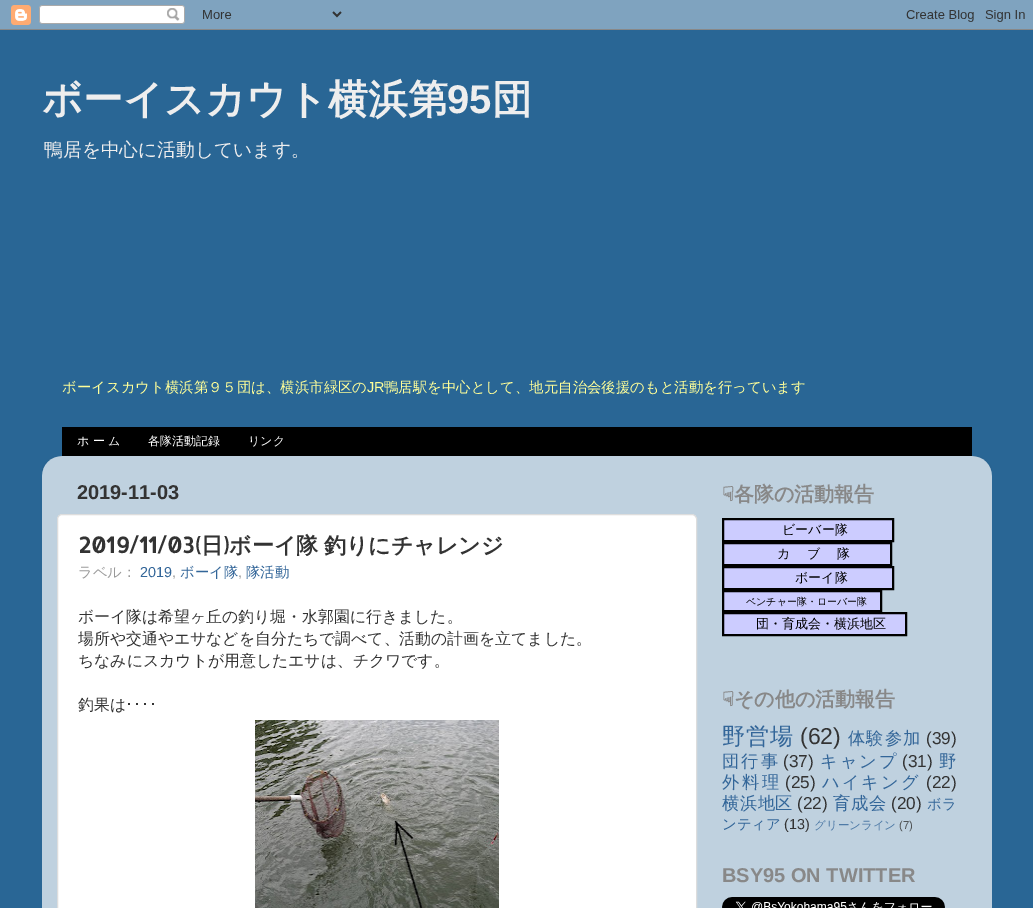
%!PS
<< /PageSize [1033 908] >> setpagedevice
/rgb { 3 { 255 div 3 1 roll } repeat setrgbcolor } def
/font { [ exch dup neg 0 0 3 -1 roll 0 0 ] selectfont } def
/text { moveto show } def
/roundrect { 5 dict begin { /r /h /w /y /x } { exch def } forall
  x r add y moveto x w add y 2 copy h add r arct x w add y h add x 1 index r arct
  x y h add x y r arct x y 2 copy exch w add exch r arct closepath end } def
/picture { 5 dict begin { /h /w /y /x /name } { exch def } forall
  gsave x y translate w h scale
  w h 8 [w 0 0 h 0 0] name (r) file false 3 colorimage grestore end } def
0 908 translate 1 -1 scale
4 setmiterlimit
41 102 149 rgb
0 0 1033 908 rectfill
(img_01.rgb) 0 0 1033 30 picture
0 0 0 rgb
62 427 910 29 rectfill
(img_02.rgb) 42 456 950 452 picture
255 255 255 rgb
57.5 514.5 639 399 4.5 roundrect gsave fill grestore
221 221 221 rgb
stroke
(img_03.rgb) 255 720 244 188 picture
204 204 255 rgb
723 519 moveto 170 0 rlineto 0 22 rlineto -170 0 rlineto closepath gsave fill grestore
0 0 0 rgb
2 setlinewidth
stroke
204 204 255 rgb
723 543 moveto 168 0 rlineto 0 22 rlineto -168 0 rlineto closepath gsave fill grestore
0 0 0 rgb
stroke
204 204 255 rgb
723 567 moveto 170 0 rlineto 0 22 rlineto -170 0 rlineto closepath gsave fill grestore
0 0 0 rgb
stroke
204 204 255 rgb
723 591 moveto 158 0 rlineto 0 20 rlineto -158 0 rlineto closepath gsave fill grestore
0 0 0 rgb
stroke
204 204 255 rgb
723 613 moveto 183 0 rlineto 0 22 rlineto -183 0 rlineto closepath gsave fill grestore
0 0 0 rgb
stroke
(img_04.rgb) 722 897 223 11 picture
/WenQuanYiZenHei-Bold 40 font
238 238 238 rgb
(ボーイスカウト横浜第) 42 113 text
/LiberationSans-Bold 40 font
(95) 447 113 text
/WenQuanYiZenHei-Bold 40 font
(団) 492 113 text
/WenQuanYiZenHei-Medium 18.75 font
(鴨居を中心に活動しています。) 44 156 text
/WenQuanYiZenHei-Medium 14.4 font
255 255 153 rgb
(ボーイスカウト横浜第９５団は、横浜市緑区の) 62 392 text
/LiberationSans-Regular 14.4 font
(JR) 367 392 text
/WenQuanYiZenHei-Medium 14.4 font
(鴨居駅を中心として、地元自治会後援のもと活動を行っています) 384 392 text
/WenQuanYiZenHei-Medium 12 font
255 255 255 rgb
(ホ ー ム) 77 445 text
(各隊活動記録) 148 445 text
(リンク) 248 445 text
/Arimo-Bold 20 font
51 51 51 rgb
(2019-11-03) 77 499 text
/Allerta-Bold 22 font
(2019/11/03\() 78 553 text
/WenQuanYiZenHei-Bold 22 font
(日) 201 553 text
/Allerta-Bold 22 font
(\)) 223 553 text
/WenQuanYiZenHei-Bold 22 font
229 553 moveto -1 0 32 (ボーイ隊 釣りにチャレンジ) widthshow
/WenQuanYiZenHei-Medium 14.4 font
153 153 153 rgb
(ラベル：) 78 577 text
/LiberationSans-Regular 14.4 font
51 102 153 rgb
(2019) 140 577 text
153 153 153 rgb
(,) 172 577 text
/WenQuanYiZenHei-Medium 14.4 font
51 102 153 rgb
(ボーイ隊) 180 577 text
/LiberationSans-Regular 14.4 font
153 153 153 rgb
(,) 238 577 text
/WenQuanYiZenHei-Medium 14.4 font
51 102 153 rgb
(隊活動) 246 577 text
/WenQuanYiZenHei-Medium 15.85 font
51 51 51 rgb
(ボーイ隊は希望ヶ丘の釣り堀・水郭園に行きました。) 78 622 text
(場所や交通やエサなどを自分たちで調べて、活動の計画を立てました。) 78 644 text
(ちなみにスカウトが用意したエサは、チクワです。) 78 666 text
(釣果は) 78 710 text
/IPAPGothic-Regular 15.85 font
(････) 125 710 text
/DejaVuSans-Bold 20 font
136 136 136 rgb
(☟) 722 501 text
/WenQuanYiZenHei-Bold 20 font
(各隊の活動報告) 734 501 text
/WenQuanYiZenHei-Medium 13 font
0 0 0 rgb
(ビーバー隊) 782 534 text
(カ 　ブ 　隊) 777 558 text
(ボーイ隊) 795 582 text
/WenQuanYiZenHei-Medium 10 font
(ベンチャー隊・ローバー隊) 746 605 text
/WenQuanYiZenHei-Medium 13 font
(団・育成会・横浜地区) 756 628 text
/DejaVuSans-Bold 20 font
136 136 136 rgb
(☟) 722 706 text
/WenQuanYiZenHei-Bold 20 font
(その他の活動報告) 734 706 text
/WenQuanYiZenHei-Medium 23 font
51 102 153 rgb
722 744 moveto 1 0 (野営場) ashow
/LiberationSans-Regular 23 font
51 51 51 rgb
(\(62\)) 800 744 text
/WenQuanYiZenHei-Medium 17.25 font
51 102 153 rgb
848 744 moveto 1 0 (体験参加) ashow
/LiberationSans-Regular 17.25 font
51 51 51 rgb
(\(39\)) 926 744 text
/WenQuanYiZenHei-Medium 17.25 font
51 102 153 rgb
722 767 moveto 2 0 (団行事) ashow
/LiberationSans-Regular 17.25 font
51 51 51 rgb
(\(37\)) 783 767 text
/WenQuanYiZenHei-Medium 17.25 font
51 102 153 rgb
820 767 moveto 2 0 (キャンプ) ashow
/LiberationSans-Regular 17.25 font
51 51 51 rgb
(\(31\)) 902 767 text
/WenQuanYiZenHei-Medium 17.25 font
51 102 153 rgb
(野) 939 767 text
722 788 moveto 2.5 0 (外料理) ashow
/LiberationSans-Regular 17.25 font
51 51 51 rgb
(\(25\)) 785 788 text
/WenQuanYiZenHei-Medium 17.25 font
51 102 153 rgb
822 788 moveto 2 0 (ハイキング) ashow
/LiberationSans-Regular 17.25 font
51 51 51 rgb
(\(22\)) 926 788 text
/WenQuanYiZenHei-Medium 17.25 font
51 102 153 rgb
722 809 moveto 0.5 0 (横浜地区) ashow
/LiberationSans-Regular 17.25 font
51 51 51 rgb
(\(22\)) 797 809 text
/WenQuanYiZenHei-Medium 17.25 font
51 102 153 rgb
833 809 moveto 0.5 0 (育成会) ashow
/LiberationSans-Regular 17.25 font
51 51 51 rgb
(\(20\)) 891 809 text
/WenQuanYiZenHei-Medium 14.4 font
51 102 153 rgb
(ボラ) 927 809 text
(ンティア) 722 829 text
/LiberationSans-Regular 14.4 font
51 51 51 rgb
(\(13\)) 784 829 text
/WenQuanYiZenHei-Medium 11.5 font
79 123 167 rgb
(グリーンライン) 814 829 text
/LiberationSans-Regular 11.5 font
79 83 85 rgb
(\(7\)) 899 829 text
/Arimo-Bold 20 font
136 136 136 rgb
(BSY95 ON TWITTER) 722 882 text
showpage
